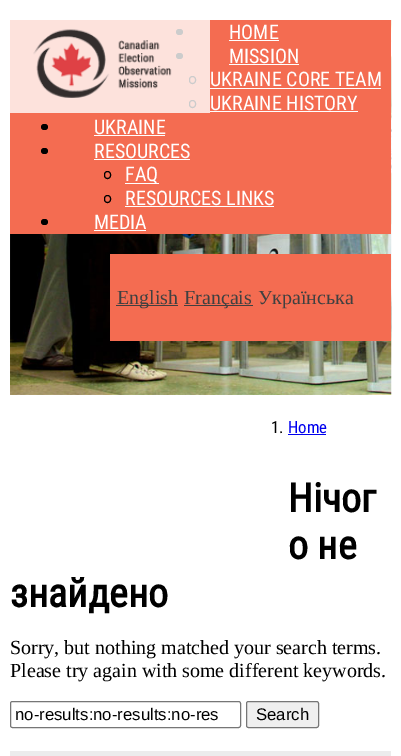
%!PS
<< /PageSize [401 756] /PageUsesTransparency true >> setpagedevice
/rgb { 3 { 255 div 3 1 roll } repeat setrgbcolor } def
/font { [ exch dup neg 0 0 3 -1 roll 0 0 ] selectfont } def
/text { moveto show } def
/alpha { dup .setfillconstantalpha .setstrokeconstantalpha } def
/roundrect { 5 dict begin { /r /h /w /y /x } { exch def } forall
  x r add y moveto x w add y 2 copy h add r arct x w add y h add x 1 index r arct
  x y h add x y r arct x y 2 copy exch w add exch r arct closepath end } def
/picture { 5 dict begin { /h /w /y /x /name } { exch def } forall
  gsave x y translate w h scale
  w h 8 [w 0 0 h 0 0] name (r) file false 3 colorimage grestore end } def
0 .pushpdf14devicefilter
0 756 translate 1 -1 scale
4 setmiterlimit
255 255 255 rgb
0 0 401 756 rectfill
(img_01.rgb) 10 20 382 375 picture
244 108 81 rgb
10 20 381 214 rectfill
0 0 0 rgb
176 29 7 6 3 roundrect fill
176 53 7 6 3 roundrect fill
189.5 76.5 6 7 3 roundrect stroke
189.5 100.5 6 7 3 roundrect stroke
0.8 alpha
255 255 255 rgb
10 20 200 93 rectfill
1 alpha
(img_02.rgb) 33 29 139 69 picture
229 40 50 1 rectfill
229 64 70 1 rectfill
210 88 171 1 rectfill
210 111 148 1 rectfill
0 0 0 rgb
41 124 7 6 3 roundrect fill
255 255 255 rgb
94 135 71 1 rectfill
0 0 0 rgb
41 148 7 6 3 roundrect fill
255 255 255 rgb
94 159 96 1 rectfill
0 0 0 rgb
104.5 171.5 6 7 3 roundrect stroke
255 255 255 rgb
125 183 34 1 rectfill
0 0 0 rgb
104.5 195.5 6 7 3 roundrect stroke
255 255 255 rgb
125 206 149 1 rectfill
0 0 0 rgb
41 219 7 6 3 roundrect fill
255 255 255 rgb
94 230 52 1 rectfill
244 108 81 rgb
110 254 281 87 rectfill
64 64 64 rgb
116 305 62 1 rectfill
184 305 69 1 rectfill
0 0 238 rgb
288 434 38 1 rectfill
118 118 118 rgb
10.5 701.5 230 26 2 roundrect stroke
239 239 239 rgb
246.5 701.5 72 26 2 roundrect gsave fill grestore
118 118 118 rgb
stroke
236 236 236 rgb
10 751 381 5 rectfill
/RobotoCondensed-Regular 20 font
255 255 255 rgb
(HOME) 229 39 text
(MISSION) 229 63 text
(UKRAINE CORE TEAM) 210 86 text
(UKRAINE HISTORY) 210 110 text
(UKRAINE) 94 134 text
(RESOURCES) 94 158 text
(FAQ) 125 181 text
(RESOURCES LINKS) 125 205 text
(MEDIA) 94 229 text
/LiberationSerif-Regular 20 font
64 64 64 rgb
(English) 117 304 text
(Français) 184 304 text
(Українська) 258 304 text
/RobotoCondensed-Regular 16.75 font
0 0 0 rgb
(1.) 271 433 text
0 0 238 rgb
(Home) 288 433 text
/RobotoCondensed-Bold 40 font
0 0 0 rgb
(Нічог) 288 512 text
(о не) 288 559 text
(знайдено) 10 607 text
/LiberationSerif-Regular 20 font
(Sorry, but nothing matched your search terms.) 10 654 text
(Please try again with some different keywords.) 10 677 text
/LiberationSans-Regular 16.75 font
(no-results:no-results:no-res) 15 720 text
(Search) 256 720 text
.poppdf14devicefilter showpage
